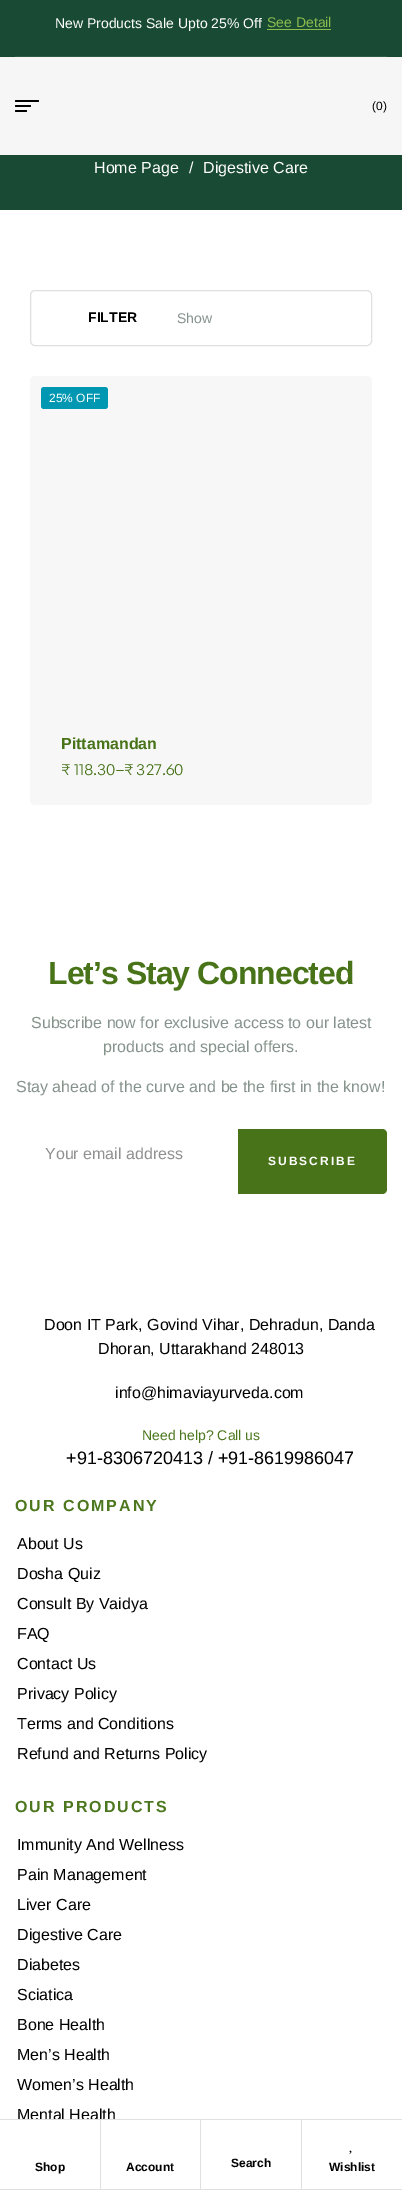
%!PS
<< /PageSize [402 2190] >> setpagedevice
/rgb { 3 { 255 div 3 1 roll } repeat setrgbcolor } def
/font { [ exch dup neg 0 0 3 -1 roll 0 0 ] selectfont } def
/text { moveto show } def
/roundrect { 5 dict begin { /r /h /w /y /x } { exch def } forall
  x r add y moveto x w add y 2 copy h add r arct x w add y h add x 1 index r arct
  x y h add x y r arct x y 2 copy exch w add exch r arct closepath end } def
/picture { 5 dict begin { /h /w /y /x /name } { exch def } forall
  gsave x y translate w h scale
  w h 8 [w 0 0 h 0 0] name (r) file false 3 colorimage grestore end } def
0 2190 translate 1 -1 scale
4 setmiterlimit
255 255 255 rgb
0 0 402 2190 rectfill
25 74 51 rgb
0 0 402 57 rectfill
48 92 71 rgb
15 56 372 1 rectfill
140 188 79 rgb
267 29 64 1 rectfill
246 246 246 rgb
0 57 402 98 rectfill
0 0 0 rgb
15 100 24 2 1 roundrect fill
15 105 16 2 1 roundrect fill
15 110 12 2 1 roundrect fill
25 74 51 rgb
0 155 402 55 rectfill
224 224 224 rgb
30.5 290.5 341 55 4.5 roundrect stroke
247 247 247 rgb
30 376 342 429 5 roundrect fill
0 151 178 rgb
41 387 67 22 3 roundrect fill
72 115 25 rgb
238 1129 moveto 144 0 rlineto 3 0 5 2 5 5 rcurveto 0 55 rlineto 0 3 -2 5 -5 5 rcurveto -144 0 rlineto closepath fill
224 224 224 rgb
0 2189 402 1 rectfill
200 2120 1 69 rectfill
301 2120 1 69 rectfill
(img_01.rgb) 349 2150 3 4 picture
/LiberationSans-Regular 14 font
255 255 255 rgb
(New Products Sale Upto 25% Off) 55 28 text
140 188 79 rgb
(See Detail) 267 27 text
/LiberationSans-Regular 12 font
0 0 0 rgb
(\(0\)) 372 110 text
/LiberationSans-Regular 16 font
255 255 255 rgb
(Home Page) 94 173 text
(/) 189 173 text
(Digestive Care) 203 173 text
/LiberationSans-Bold 14 font
0 0 0 rgb
(FILTER) 88 322 text
/LiberationSans-Regular 14 font
134 147 141 rgb
(Show) 177 323 text
/LiberationSans-Regular 12 font
255 255 255 rgb
(25% OFF) 49 402 text
/LiberationSans-Bold 16 font
72 115 25 rgb
(Pittamandan) 61 749 text
/GeneralSans-Regular 16 font
(₹ 118.30–₹ 327.60) 61 775 text
/LiberationSans-Bold 32 font
48 984 moveto -1 0 (Let’s Stay Connected) ashow
/LiberationSans-Regular 16 font
134 147 141 rgb
(Subscribe now for exclusive access to our latest) 31 1028 text
(products and special offers.) 103 1052 text
(Stay ahead of the curve and be the first in the know!) 16 1092 text
144 144 144 rgb
(Your email address) 45 1159 text
/LiberationSans-Bold 12 font
255 255 255 rgb
268 1165 moveto 2 0 (SUBSCRIBE) ashow
/LiberationSans-Regular 16 font
0 0 0 rgb
(Doon IT Park, Govind Vihar, Dehradun, Danda) 44 1330 text
(Dhoran, Uttarakhand 248013) 98 1354 text
(info@himaviayurveda.com) 115 1398 text
/LiberationSans-Regular 14 font
77 119 31 rgb
(Need help? Call us) 142 1440 text
/LiberationSans-Regular 18 font
0 0 0 rgb
(+91-8306720413 / +91-8619986047) 66 1464 text
/LiberationSans-Bold 16 font
77 119 31 rgb
15 1511 moveto 2 0 (OUR COMPANY) ashow
/LiberationSans-Regular 16 font
0 0 0 rgb
(About Us) 17 1549 text
(Dosha Quiz) 17 1579 text
(Consult By Vaidya) 17 1609 text
(FAQ) 17 1639 text
(Contact Us) 17 1669 text
(Privacy Policy) 17 1699 text
(Terms and Conditions) 17 1729 text
(Refund and Returns Policy) 17 1759 text
/LiberationSans-Bold 16 font
77 119 31 rgb
15 1812 moveto 2 0 (OUR PRODUCTS) ashow
/LiberationSans-Regular 16 font
0 0 0 rgb
(Immunity And Wellness) 17 1850 text
(Pain Management) 17 1880 text
(Liver Care) 17 1910 text
(Digestive Care) 17 1940 text
(Diabetes) 17 1970 text
(Sciatica) 17 2000 text
(Bone Health) 17 2030 text
(Men’s Health) 17 2060 text
(Women’s Health) 17 2090 text
(Mental Health) 17 2120 text
255 255 255 rgb
33 2120 73 1 rectfill
224 224 224 rgb
0 2119 402 1 rectfill
100 2120 1 69 rectfill
/LiberationSans-Bold 12 font
0 0 0 rgb
(Shop) 35 2171 text
(Account) 126 2171 text
(Search) 231 2167 text
(Wishlist) 329 2171 text
showpage
